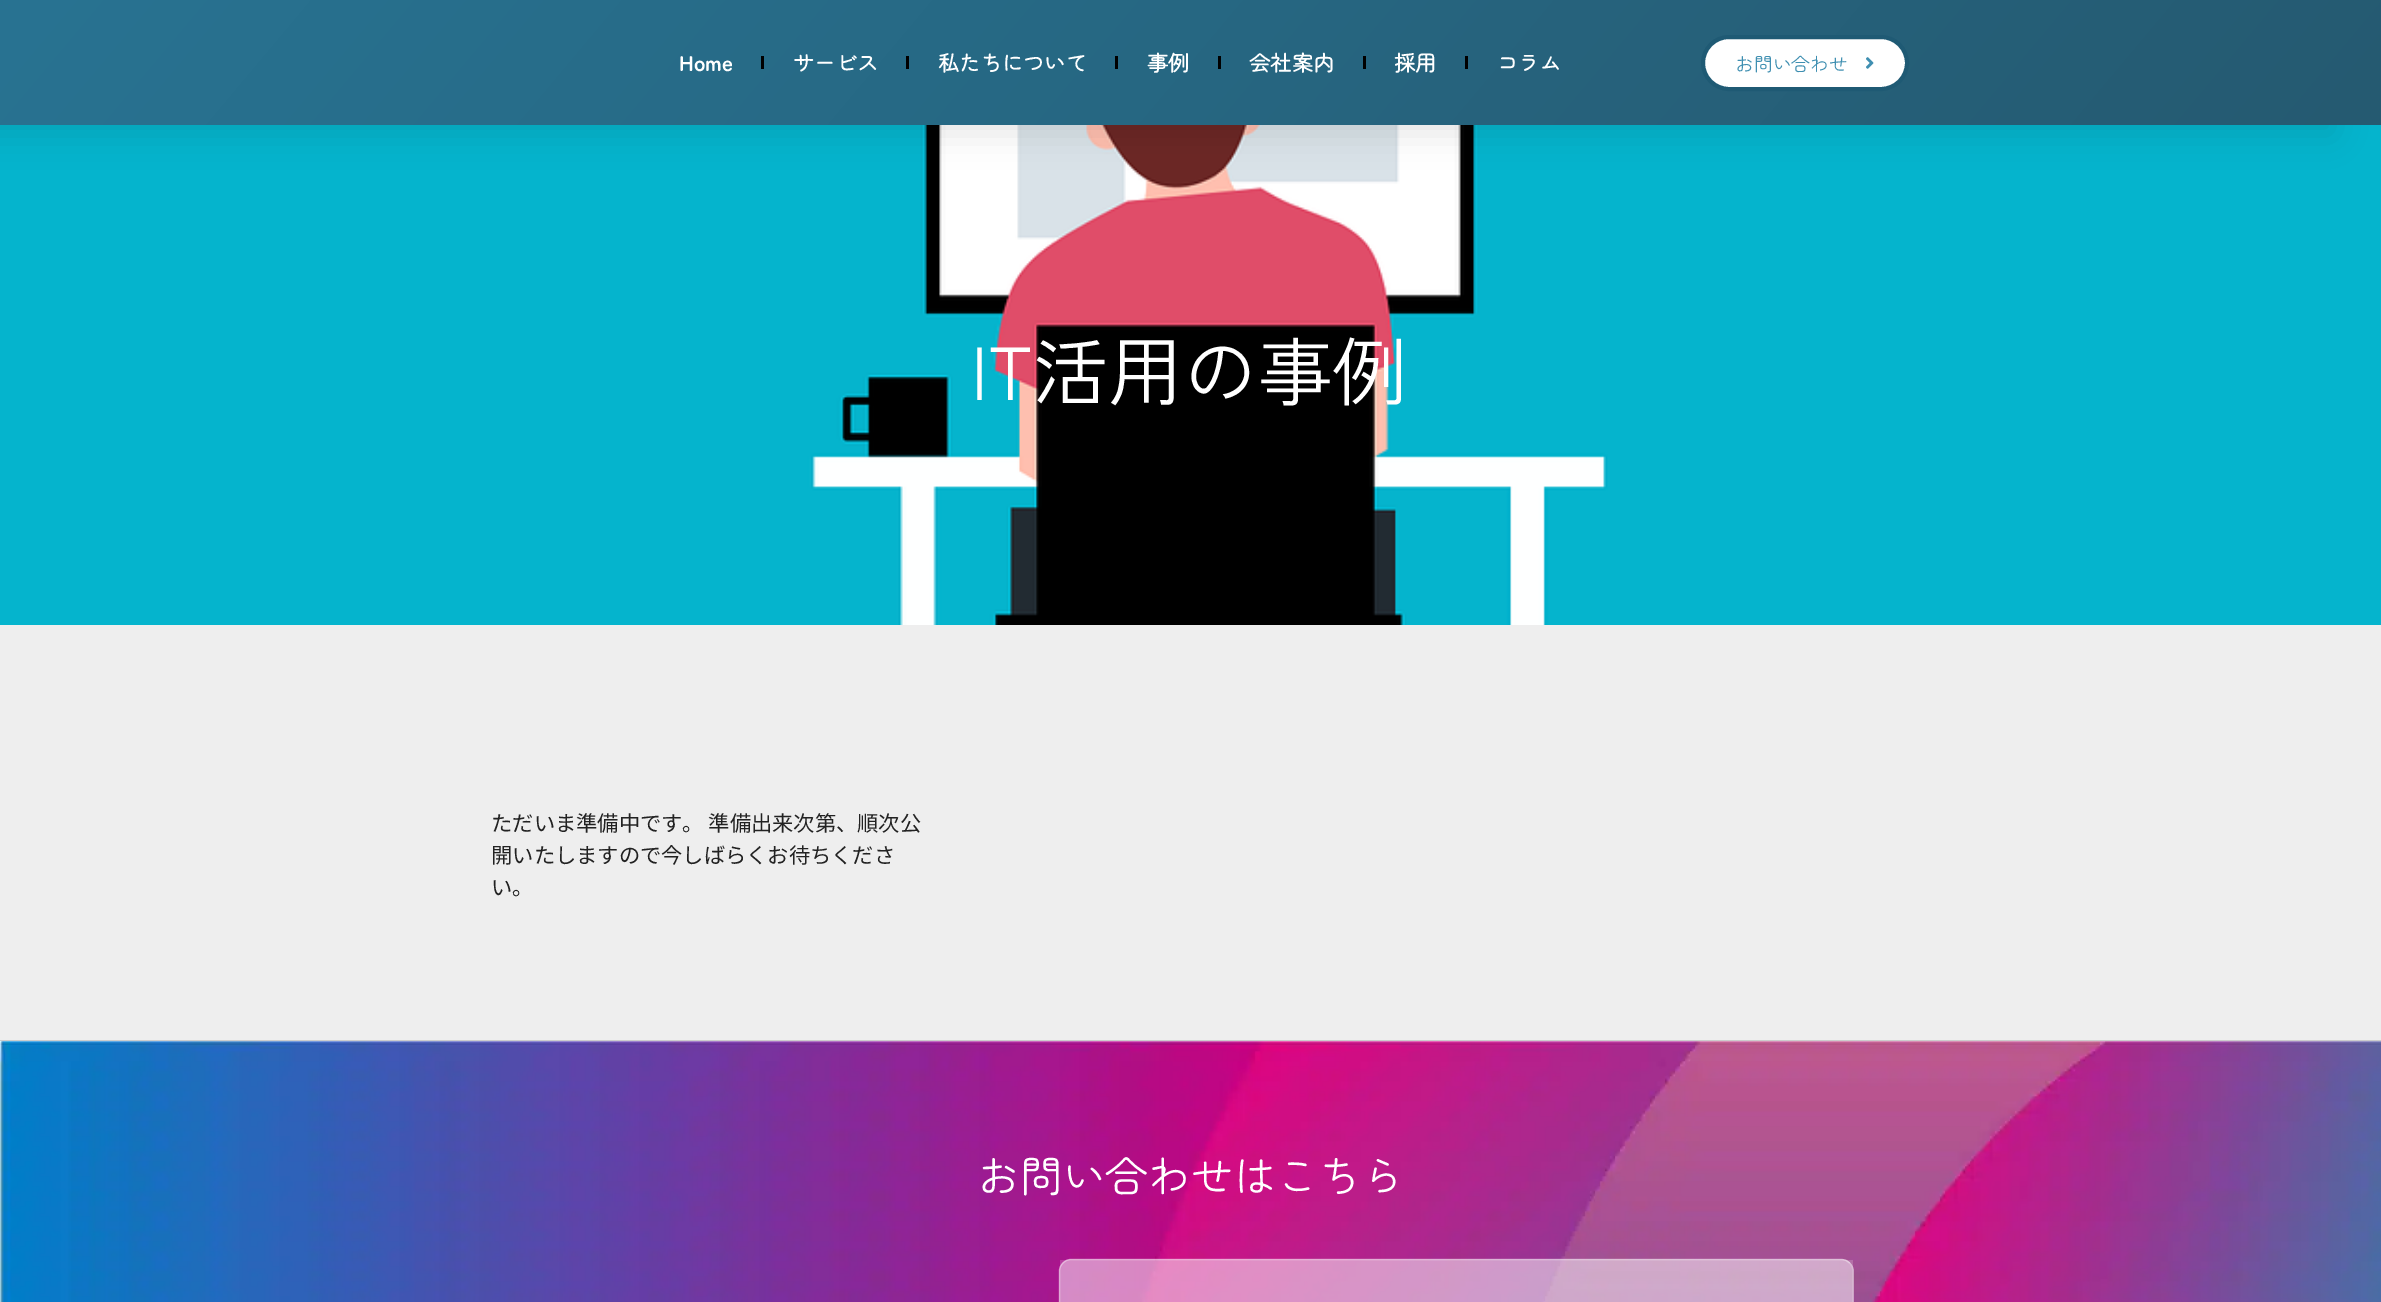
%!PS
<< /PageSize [2381 1302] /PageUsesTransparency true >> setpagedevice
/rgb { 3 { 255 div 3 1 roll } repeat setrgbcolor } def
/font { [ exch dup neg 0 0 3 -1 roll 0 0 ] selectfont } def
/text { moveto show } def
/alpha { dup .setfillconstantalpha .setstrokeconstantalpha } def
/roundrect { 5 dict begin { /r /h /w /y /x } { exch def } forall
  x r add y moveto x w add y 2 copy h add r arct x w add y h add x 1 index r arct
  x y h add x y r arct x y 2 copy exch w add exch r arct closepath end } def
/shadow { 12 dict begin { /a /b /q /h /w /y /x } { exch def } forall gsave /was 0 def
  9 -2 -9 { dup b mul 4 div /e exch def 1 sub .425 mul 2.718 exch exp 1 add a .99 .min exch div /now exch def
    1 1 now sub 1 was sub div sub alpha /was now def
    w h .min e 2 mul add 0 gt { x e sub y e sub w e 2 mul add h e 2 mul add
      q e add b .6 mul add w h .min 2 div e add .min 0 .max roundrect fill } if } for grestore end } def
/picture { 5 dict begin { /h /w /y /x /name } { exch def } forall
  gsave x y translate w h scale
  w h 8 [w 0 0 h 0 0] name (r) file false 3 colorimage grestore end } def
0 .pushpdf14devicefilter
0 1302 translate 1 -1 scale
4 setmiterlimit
255 255 255 rgb
0 0 2381 1302 rectfill
(img_02.rgb) 0 125 2381 500 picture
0 0 0 rgb
-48 4 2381 130 0 16 0.1 shadow
gsave 0 0 moveto 2381 0 rlineto 0 125 rlineto -2381 0 rlineto closepath clip newpath
<< /ShadingType 2 /ColorSpace /DeviceRGB /Coords [461 -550 1920 675] /Extend [true true] /Function << /FunctionType 2 /Domain [0 1] /C0 [0.157 0.451 0.573] /C1 [0.145 0.353 0.443] /N 1 >> >> shfill grestore
761 56 3 13 rectfill
906 56 3 13 rectfill
1115 56 3 13 rectfill
1218 56 3 13 rectfill
1363 56 3 13 rectfill
1465 56 3 13 rectfill
255 255 255 rgb
1703 37 204 52 26 roundrect gsave fill grestore
31 90 116 rgb
4 setlinewidth
stroke
(img_01.rgb) 1866 57 8 12 picture
238 238 238 rgb
0 625 2381 415 rectfill
204 204 204 rgb
0 1040 2381 1 rectfill
(img_03.rgb) 0 1041 2381 261 picture
0.4 alpha
255 255 255 rgb
1059 1259 795 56 13 roundrect fill
0.2 alpha
1.2 setlinewidth
1849.5 1263 moveto 2.5 2 3.5 5 3.5 8 rcurveto 0 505 rlineto 0 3.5 -1 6.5 -3.5 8.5 rcurveto -2 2.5 -5 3.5 -8.5 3.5 rcurveto -770 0 rlineto -3 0 -6 -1 -8 -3.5 rcurveto stroke
0.4 alpha
1063 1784.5 moveto -2.5 -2 -3.5 -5 -3.5 -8.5 rcurveto 0 -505 rlineto 0 -3 1 -6 3.5 -8 rcurveto 2 -2.5 5 -3.5 8 -3.5 rcurveto 770 0 rlineto 3.5 0 6.5 1 8.5 3.5 rcurveto stroke
0.18 alpha
1060 1260 793 42 rectfill
/ZenMaruGothic-Bold 21.25 font
1 alpha
(Home) 679 71 text
/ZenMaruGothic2-Bold 21.25 font
(サービス) 793 71 text
(私たちについて) 938 71 text
(事例) 1147 71 text
(会社案内) 1249 71 text
(採用) 1394 71 text
(コラム) 1497 71 text
/ZenMaruGothic-Regular 18.75 font
63 143 177 rgb
(お問い合わせ) 1735 71 text
/ZenKakuGothicNew-Regular 75 font
255 255 255 rgb
(IT活用の事例) 971 400 text
/NotoSansJP-Regular 21.25 font
34 34 34 rgb
(ただいま準備中です。 準備出来次第、順次公) 491 831 text
(開いたしますので今しばらくお待ちくださ) 491 863 text
(い。) 491 895 text
/ZenMaruGothic-Regular 42.5 font
255 255 255 rgb
977 1192 moveto 0.25 0 (お問い合わせはこちら) ashow
.poppdf14devicefilter showpage
